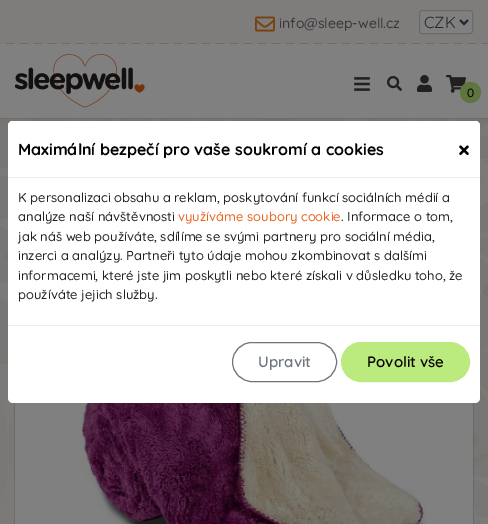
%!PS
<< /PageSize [488 524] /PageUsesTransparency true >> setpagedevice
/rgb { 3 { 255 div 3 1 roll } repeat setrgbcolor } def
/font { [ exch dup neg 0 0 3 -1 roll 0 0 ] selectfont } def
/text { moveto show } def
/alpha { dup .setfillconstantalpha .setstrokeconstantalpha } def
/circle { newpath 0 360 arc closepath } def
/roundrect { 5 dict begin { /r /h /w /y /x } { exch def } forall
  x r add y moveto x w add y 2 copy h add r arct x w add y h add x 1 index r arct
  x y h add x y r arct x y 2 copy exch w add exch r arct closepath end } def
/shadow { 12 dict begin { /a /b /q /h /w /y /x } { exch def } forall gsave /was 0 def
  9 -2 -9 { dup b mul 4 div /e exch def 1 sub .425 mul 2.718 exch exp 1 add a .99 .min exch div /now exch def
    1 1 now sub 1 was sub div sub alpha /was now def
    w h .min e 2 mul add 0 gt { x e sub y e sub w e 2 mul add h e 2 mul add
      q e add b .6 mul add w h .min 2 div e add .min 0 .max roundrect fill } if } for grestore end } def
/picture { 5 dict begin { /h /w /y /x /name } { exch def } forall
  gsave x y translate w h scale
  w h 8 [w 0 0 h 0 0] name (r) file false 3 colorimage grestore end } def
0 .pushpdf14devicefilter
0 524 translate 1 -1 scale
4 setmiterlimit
128 128 128 rgb
0 0 488 524 rectfill
126 125 124 rgb
0 0 488 44 rectfill
(img_01.rgb) 6 43 482 1 picture
(img_02.rgb) 255 16 20 16 picture
128 128 128 rgb
419.5 10.5 53 23 2.5 roundrect gsave fill grestore
108 105 103 rgb
stroke
37 40 44 rgb
2 setlinewidth
460 20 moveto 4 4 rlineto 4 -4 rlineto stroke
111 108 102 rgb
0 118 488 1 rectfill
(img_03.rgb) 15 54 130 54 picture
(img_04.rgb) 354 77 16 14 picture
(img_05.rgb) 387 76 15 15 picture
(img_06.rgb) 417 75 15 17 picture
(img_07.rgb) 446 75 20 18 picture
94 117 63 rgb
470.5 92.5 10.5 circle fill
(img_08.rgb) 0 119 488 405 picture
68 68 68 rgb
15 246 458 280 0 0.5 1 shadow
128 128 128 rgb
15 403 458 121 rectfill
(img_09.rgb) 81 403 346 121 picture
255 255 255 rgb
8 121 472 282 5 roundrect fill
13 121 moveto 462 0 rlineto 3 0 5 2 5 5 rcurveto 0 52 rlineto -472 0 rlineto 0 -52 rlineto 0 -3 2 -5 5 -5 rcurveto closepath fill
233 236 239 rgb
8 177 472 1 rectfill
8 325 472 1 rectfill
108 117 125 rgb
1 setlinewidth
232.5 342.5 104 39 19.5 roundrect stroke
187 234 126 rgb
341.5 342.5 128 39 19.5 roundrect gsave fill grestore
stroke
/Quicksand-Medium 14 font
57 56 57 rgb
(info@sleep-well.cz) 279 28 text
/Quicksand-Light 16 font
37 40 44 rgb
(CZK) 424 28 text
/Quicksand-Medium 12 font
4 1 1 rgb
(0) 467 97 text
/Quicksand-Bold 16 font
(Maximální bezpečí pro vaše soukromí a cookies) 18 155 text
/Quicksand-Bold 24 font
(×) 458 158 text
/Quicksand-Medium 13 font
35 31 32 rgb
(K personalizaci obsahu a reklam, poskytování funkcí sociálních médií a) 18 202 text
(analýze naší návštěvnosti) 18 221 text
235 98 29 rgb
(využíváme soubory cookie) 178 221 text
35 31 32 rgb
(. Informace o tom,) 341 221 text
(jak náš web používáte, sdílíme se svými partnery pro sociální média,) 18 241 text
(inzerci a analýzy. Partneři tyto údaje mohou zkombinovat s dalšími) 18 260 text
(informacemi, které jste jim poskytli nebo které získali v důsledku toho, že) 18 280 text
(používáte jejich služby.) 18 299 text
/Quicksand-SemiBold 15 font
108 117 125 rgb
(Upravit) 258 367 text
4 1 1 rgb
(Povolit vše) 367 367 text
.poppdf14devicefilter showpage
